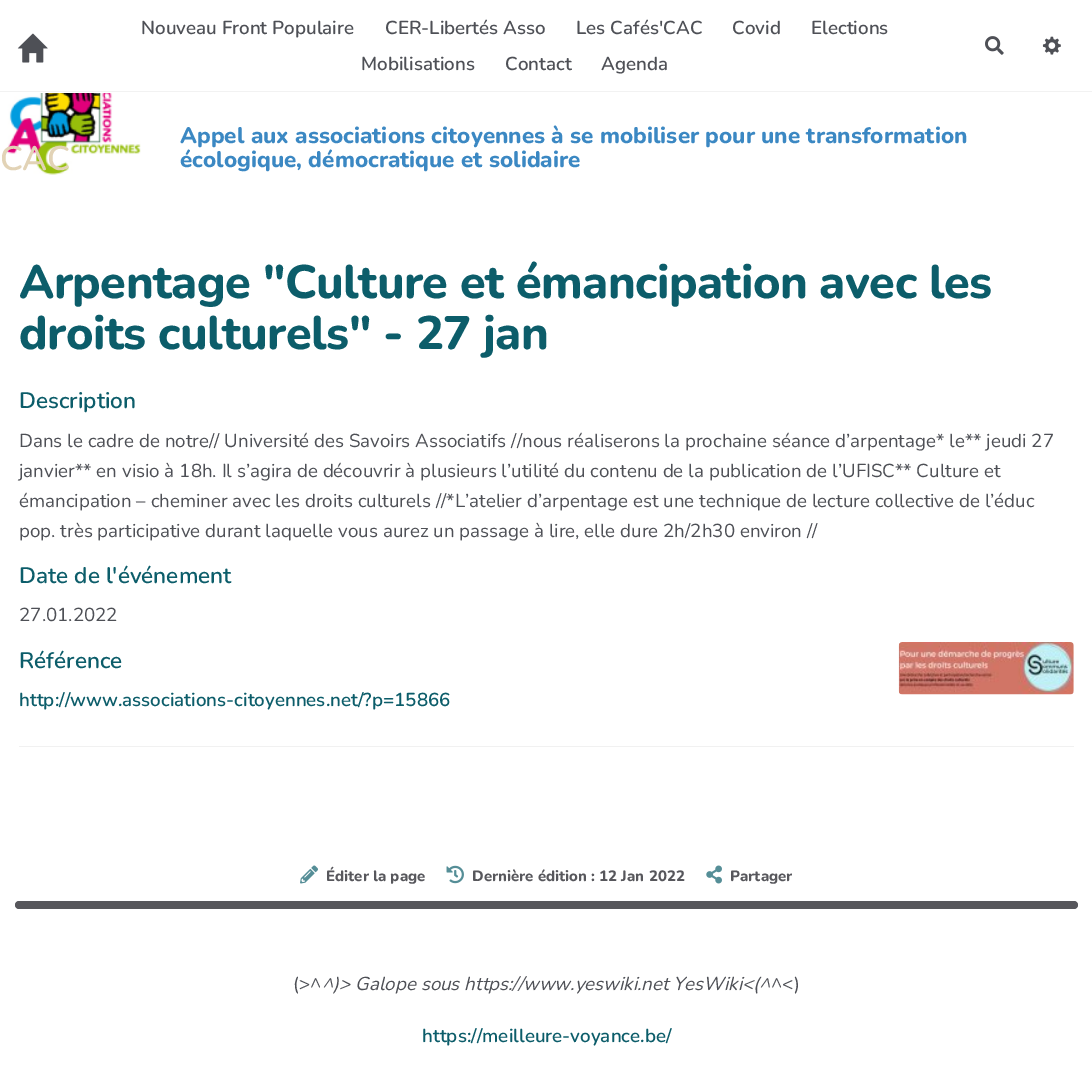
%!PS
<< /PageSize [1092 1076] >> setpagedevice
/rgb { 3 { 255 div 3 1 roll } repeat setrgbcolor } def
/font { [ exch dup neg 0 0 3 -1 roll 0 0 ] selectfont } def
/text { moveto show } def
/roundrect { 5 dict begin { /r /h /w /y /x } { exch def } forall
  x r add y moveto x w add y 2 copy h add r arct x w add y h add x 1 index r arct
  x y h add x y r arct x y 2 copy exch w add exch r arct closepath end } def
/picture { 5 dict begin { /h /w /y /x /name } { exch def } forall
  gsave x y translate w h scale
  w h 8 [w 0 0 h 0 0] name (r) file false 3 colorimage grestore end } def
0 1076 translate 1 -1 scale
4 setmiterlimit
255 255 255 rgb
0 0 1092 1076 rectfill
242 242 242 rgb
0 91 1092 1 rectfill
(img_01.rgb) 17 33 31 30 picture
(img_02.rgb) 985 36 19 19 picture
(img_03.rgb) 1042 36 19 19 picture
(img_04.rgb) 6 93 135 82 picture
(img_05.rgb) 898 642 176 53 picture
241 241 241 rgb
19 746 1055 1 rectfill
(img_06.rgb) 300 865 18 19 picture
(img_07.rgb) 446 865 18 19 picture
(img_08.rgb) 706 865 16 19 picture
87 87 92 rgb
15 901 1063 8 4 roundrect fill
/Nunito-SemiBold 18.75 font
78 80 86 rgb
(Nouveau Front Populaire) 141 34 text
(CER-Libertés Asso) 385 34 text
(Les Cafés'CAC) 576 34 text
(Covid) 732 34 text
(Elections) 811 34 text
(Mobilisations) 361 70 text
(Contact) 505 70 text
(Agenda) 601 70 text
/Nunito-SemiBold 34 font
226 211 182 rgb
0 170 moveto -0.6 0 (CAC) ashow
/Nunito-ExtraBold 22.5 font
59 136 195 rgb
(Appel aux associations citoyennes à se mobiliser pour une transformation) 180 143 text
(écologique, démocratique et solidaire) 180 167 text
/Nunito-ExtraBold 46.9 font
12 93 106 rgb
19 298 moveto -0.6 0 (Arpentage "Culture et émancipation avec les) ashow
19 349 moveto -0.6 0 (droits culturels" - 27 jan) ashow
/Nunito-SemiBold 22.5 font
(Description) 19 408 text
/Nunito-Regular 18.75 font
78 80 86 rgb
(Dans le cadre de notre// Université des Savoirs Associatifs //nous réaliserons la prochaine séance d’arpentage* le** jeudi 27) 19 447 text
(janvier** en visio à 18h. Il s’agira de découvrir à plusieurs l’utilité du contenu de la publication de l’UFISC** Culture et) 19 477 text
(émancipation – cheminer avec les droits culturels //*L’atelier d’arpentage est une technique de lecture collective de l’éduc) 19 507 text
(pop. très participative durant laquelle vous aurez un passage à lire, elle dure 2h/2h30 environ //) 19 537 text
/Nunito-SemiBold 22.5 font
12 93 106 rgb
(Date de l'événement) 19 583 text
/Nunito-Regular 18.75 font
78 80 86 rgb
(27.01.2022) 19 621 text
/Nunito-SemiBold 22.5 font
12 93 106 rgb
(Référence) 19 668 text
/Nunito-SemiBold 18.75 font
(http://www.associations-citoyennes.net/?p=15866) 19 706 text
/Nunito-ExtraBold 15 font
87 87 92 rgb
(Éditer la page) 326 881 text
(Dernière édition : 12 Jan 2022) 472 881 text
(Partager) 730 881 text
/Nunito-Regular 18.75 font
78 80 86 rgb
(\(>^) 293 990 text
/Nunito-Italic 18.75 font
(^\)> Galope sous https://www.yeswiki.net YesWiki<\(^) 322 990 text
/Nunito-Regular 18.75 font
(^<\)) 771 990 text
/Nunito-SemiBold 18.75 font
12 93 106 rgb
(https://meilleure-voyance.be/) 422 1042 text
showpage
